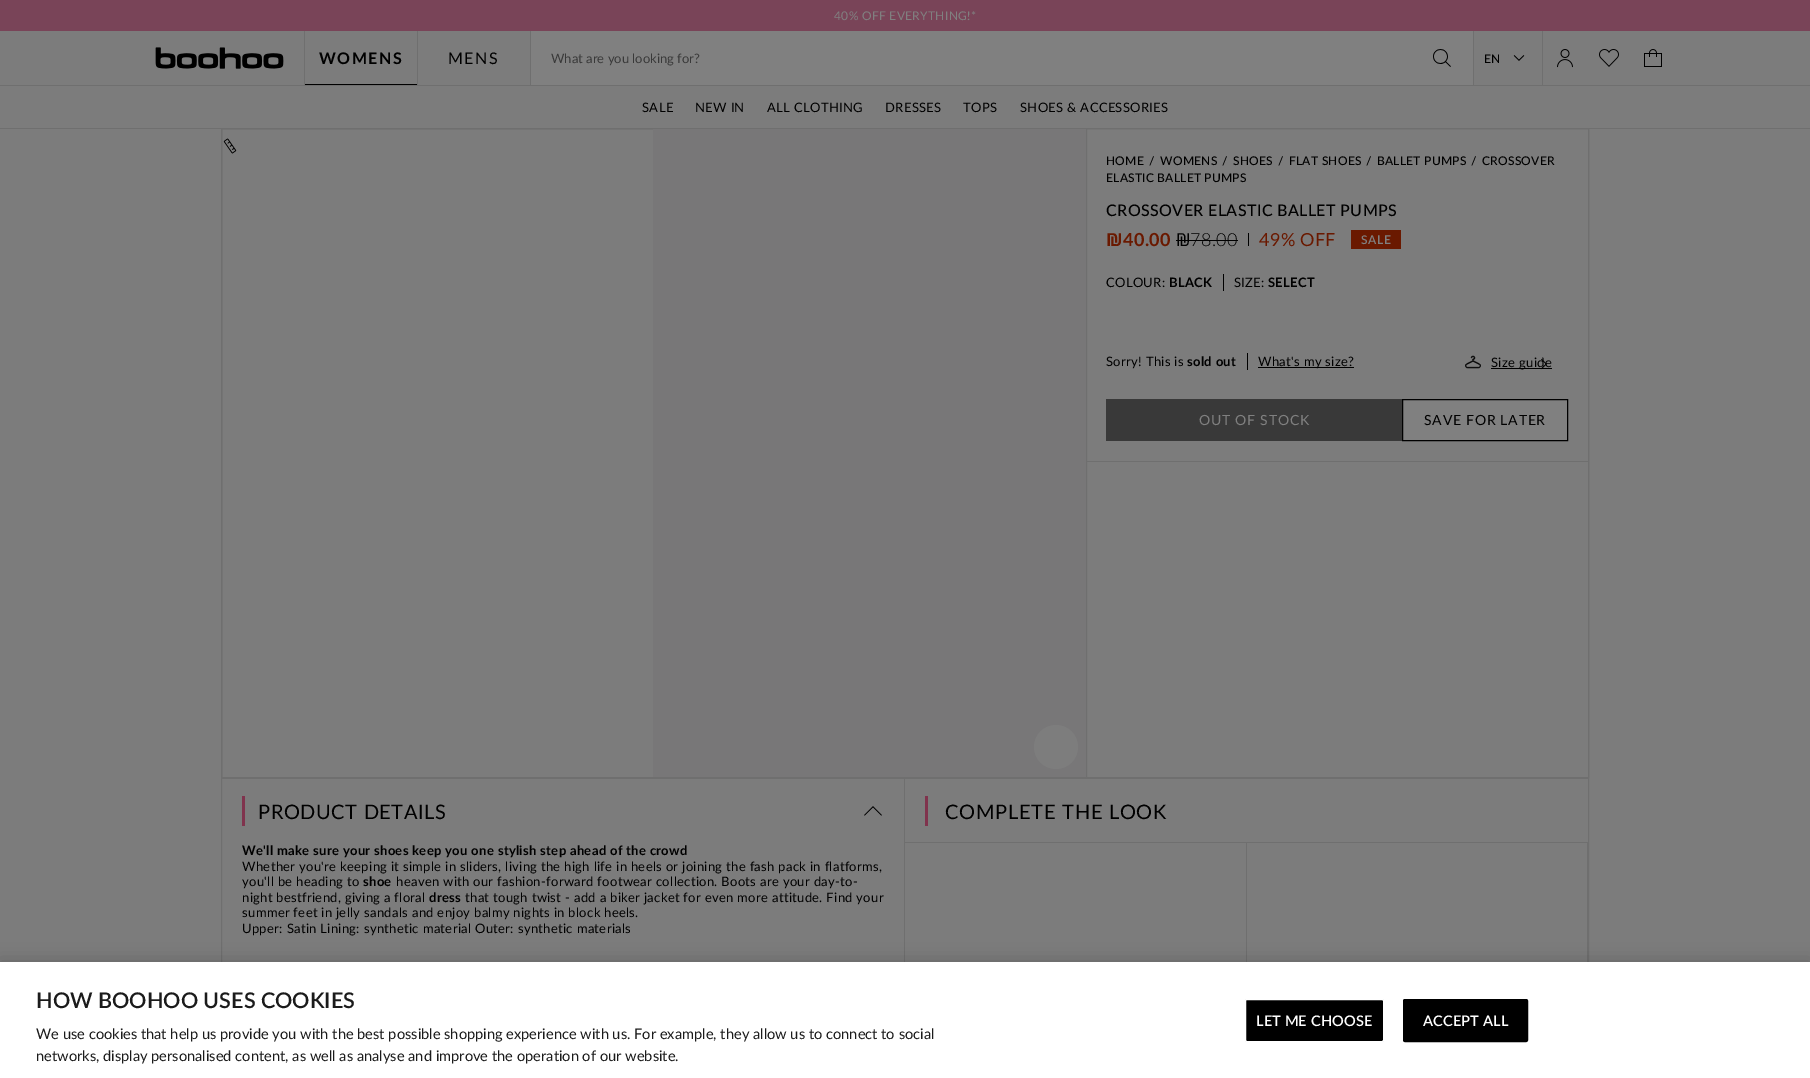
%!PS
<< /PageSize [1810 1078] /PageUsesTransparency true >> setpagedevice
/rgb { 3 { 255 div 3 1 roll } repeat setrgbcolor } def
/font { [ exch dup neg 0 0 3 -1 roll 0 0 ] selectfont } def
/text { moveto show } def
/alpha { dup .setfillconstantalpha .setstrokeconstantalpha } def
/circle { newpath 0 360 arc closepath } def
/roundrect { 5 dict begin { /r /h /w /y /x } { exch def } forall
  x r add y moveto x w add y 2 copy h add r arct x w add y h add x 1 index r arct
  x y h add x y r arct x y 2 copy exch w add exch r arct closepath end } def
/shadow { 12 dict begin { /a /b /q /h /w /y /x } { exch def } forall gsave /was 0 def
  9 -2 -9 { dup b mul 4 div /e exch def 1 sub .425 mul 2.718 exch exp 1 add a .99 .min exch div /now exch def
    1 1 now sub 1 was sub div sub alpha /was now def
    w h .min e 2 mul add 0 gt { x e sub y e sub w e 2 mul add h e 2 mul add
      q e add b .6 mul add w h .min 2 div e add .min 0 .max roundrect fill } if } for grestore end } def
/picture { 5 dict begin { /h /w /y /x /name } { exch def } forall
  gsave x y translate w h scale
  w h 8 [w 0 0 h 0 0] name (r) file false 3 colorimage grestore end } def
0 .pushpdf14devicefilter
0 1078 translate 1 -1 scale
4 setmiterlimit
124 124 124 rgb
0 0 1810 1078 rectfill
121 68 88 rgb
0 0 1810 31 rectfill
111 111 111 rgb
221.5 128.5 1367 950 rectstroke
221.5 128.5 1367 649 rectstroke
1086 461 502 1 rectfill
221.5 128.5 865 649 rectstroke
gsave
222 129 864 648 rectclip
120 119 120 rgb
653.5 128.5 433 649 rectstroke
grestore
0 128 1810 1 rectfill
(img_01.rgb) 155 47 129 22 picture
304 31 1 54 rectfill
0 0 0 rgb
305 84 112 1 rectfill
111 111 111 rgb
417 31 1 54 rectfill
0 85 1810 1 rectfill
128 128 128 rgb
531 31 942 54 rectfill
111 111 111 rgb
530 31 1 54 rectfill
(img_02.rgb) 1433 49 18 18 picture
1542 31 1 54 rectfill
1473 31 1 54 rectfill
(img_03.rgb) 1513 55 12 6 picture
(img_04.rgb) 1557 49 16 19 picture
(img_05.rgb) 1599 49 20 18 picture
(img_06.rgb) 1644 49 18 18 picture
120 119 120 rgb
654 129 432 648 rectfill
125 125 125 rgb
1056 747 22 circle fill
0 0 0 rgb
1176 240 62 1 rectfill
1248 233 1 13 rectfill
106 25 0 rgb
1351 230 50 19 rectfill
0 0 0 rgb
1223 274 1 17 rectfill
1247 353 1 17 rectfill
(img_07.rgb) 223 138 14 16 picture
1258 367 96 1 rectfill
(img_08.rgb) 1465 355 16 14 picture
1491 368 61 1 rectfill
57 57 57 rgb
1106 399 296 42 rectfill
128 128 128 rgb
1402.5 399.5 moveto 165 0 rlineto 0 41 rlineto -165 0 rlineto closepath gsave fill grestore
0 0 0 rgb
stroke
111 111 111 rgb
222 778 1366 1 rectfill
128 51 77 rgb
242 796 3 30 rectfill
(img_10.rgb) 864 806 18 10 picture
111 111 111 rgb
904 778 moveto 0 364 rlineto 1 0 rlineto 0 -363 rlineto 682 0 rlineto 0 -1 rlineto closepath fill
128 51 77 rgb
925 796 3 30 rectfill
111 111 111 rgb
905 842 683 1 rectfill
1246 843 1 119 rectfill
1587 843 1 119 rectfill
0 0 0 rgb
0 962 1810 116 0 9 0.2 shadow
255 255 255 rgb
0 962 1810 116 rectfill
0 0 0 rgb
1245.5 999.5 138 42 1.5 roundrect gsave fill grestore
255 255 255 rgb
stroke
0 0 0 rgb
1403.5 999.5 124 42 1.5 roundrect gsave fill grestore
stroke
/Lato-Regular 12 font
128 128 128 rgb
834 20 moveto 0.33 0 (40% OFF EVERYTHING!*) ashow
/Lato-Bold 16 font
0 0 0 rgb
319 64 moveto 1.5 0 (WOMENS) ashow
/Lato-Regular 16 font
448 64 moveto 1.5 0 (MENS) ashow
/Lato-Regular 13 font
642 112 moveto 0.33 0 (SALE) ashow
695 112 moveto 0.33 0 (NEW IN) ashow
767 112 moveto 0.33 0 (ALL CLOTHING) ashow
885 112 moveto 0.33 0 (DRESSES) ashow
963 112 moveto 0.33 0 (TOPS) ashow
1020 112 moveto 0.33 0 (SHOES & ACCESSORIES) ashow
57 57 57 rgb
(What are you looking for?) 551 63 text
/Lato-Medium 12 font
0 0 0 rgb
(EN) 1484 63 text
1106 165 moveto 0.25 0 (HOME) ashow
1149 165 moveto 0.25 0 (/) ashow
1160 165 moveto 0.25 0 (WOMENS) ashow
1222 165 moveto 0.25 0 (/) ashow
1233 165 moveto 0.25 0 (SHOES) ashow
1278 165 moveto 0.25 0 (/) ashow
1289 165 moveto 0.25 0 (FLAT SHOES) ashow
1366 165 moveto 0.25 0 (/) ashow
1377 165 moveto 0.25 0 (BALLET PUMPS) ashow
1471 165 moveto 0.25 0 (/) ashow
1482 165 moveto 0.25 0 (CROSSOVER) ashow
1106 182 moveto 0.25 0 (ELASTIC BALLET PUMPS) ashow
/Lato-Medium 16 font
1106 216 moveto 0.4 0 (CROSSOVER ELASTIC BALLET PUMPS) ashow
/NotoSans-Bold 18 font
106 25 0 rgb
1106 246 moveto 0.33 0 (₪) ashow
/Lato-Bold 18 font
1123 246 moveto 0.33 0 (40.00) ashow
/NotoSans-Regular 18 font
0 0 0 rgb
1176 246 moveto 0.33 0 (₪) ashow
/Lato-Light 18 font
1190 246 moveto 0.33 0 (78.00) ashow
/Lato-Regular 18 font
106 25 0 rgb
1259 246 moveto 0.33 0 (49% OFF) ashow
/Lato-SemiBold 12 font
128 128 128 rgb
1361 244 moveto 0.6 0 (SALE) ashow
/Lato-Regular 13 font
0 0 0 rgb
1106 287 moveto 0.33 0 (COLOUR:) ashow
/Lato-Bold 13 font
1169 287 moveto 0.33 0 (BLACK) ashow
/Lato-Regular 13 font
1234 287 moveto 0.33 0 (SIZE:) ashow
/Lato-Bold 13 font
1268 287 moveto 0.33 0 (SELECT) ashow
/Lato-Regular 13 font
1106 366 moveto 0.33 0 (Sorry! This is) ashow
/Lato-Bold 13 font
1187 366 moveto 0.33 0 (sold out) ashow
/Lato-Regular 13 font
1258 366 moveto 0.33 0 (What's my size?) ashow
1491 367 moveto 0.33 0 (Size guide) ashow
(img_09.rgb) 1541 358 6 12 picture
/Lato-Regular 14 font
128 128 128 rgb
1199 425 moveto 0.75 0 (OUT OF STOCK) ashow
0 0 0 rgb
1424 425 moveto 0.75 0 (SAVE FOR LATER) ashow
/Lato-Regular 20 font
258 819 moveto 0.6 0 (PRODUCT DETAILS) ashow
/Lato-Bold 13 font
242 855 moveto 0.33 0 (We'll make sure your shoes keep you one stylish step ahead of the crowd) ashow
/Lato-Regular 13 font
242 871 moveto 0.33 0 (Whether you're keeping it simple in sliders, living the high life in heels or joining the fash pack in flatforms,) ashow
242 886 moveto 0.33 0 (you'll be heading to) ashow
/Lato-Bold 13 font
363 886 moveto 0.33 0 (shoe) ashow
/Lato-Regular 13 font
396 886 moveto 0.33 0 (heaven with our fashion-forward footwear collection. Boots are your day-to-) ashow
242 902 moveto 0.33 0 (night bestfriend, giving a floral) ashow
/Lato-Bold 13 font
429 902 moveto 0.33 0 (dress) ashow
/Lato-Regular 13 font
465 902 moveto 0.33 0 (that tough twist - add a biker jacket for even more attitude. Find your) ashow
242 917 moveto 0.33 0 (summer feet in jelly sandals and enjoy balmy nights in block heels.) ashow
242 933 moveto 0.33 0 (Upper: Satin Lining: synthetic material Outer: synthetic materials) ashow
/Lato-Regular 20 font
945 819 moveto 0.75 0 (COMPLETE THE LOOK) ashow
/Lato-SemiBold 21.6 font
27 27 27 rgb
(HOW BOOHOO USES COOKIES) 36 1008 text
/Lato-Regular 14.63 font
(We use cookies that help us provide you with the best possible shopping experience with us. For example, they allow us to connect to social) 36 1039 text
(networks, display personalised content, as well as analyse and improve the operation of our website.) 36 1061 text
/Lato-SemiBold 14.63 font
255 255 255 rgb
1256 1026 moveto 0.1 0 (LET ME CHOOSE) ashow
1423 1026 moveto 0.1 0 (ACCEPT ALL) ashow
.poppdf14devicefilter showpage
